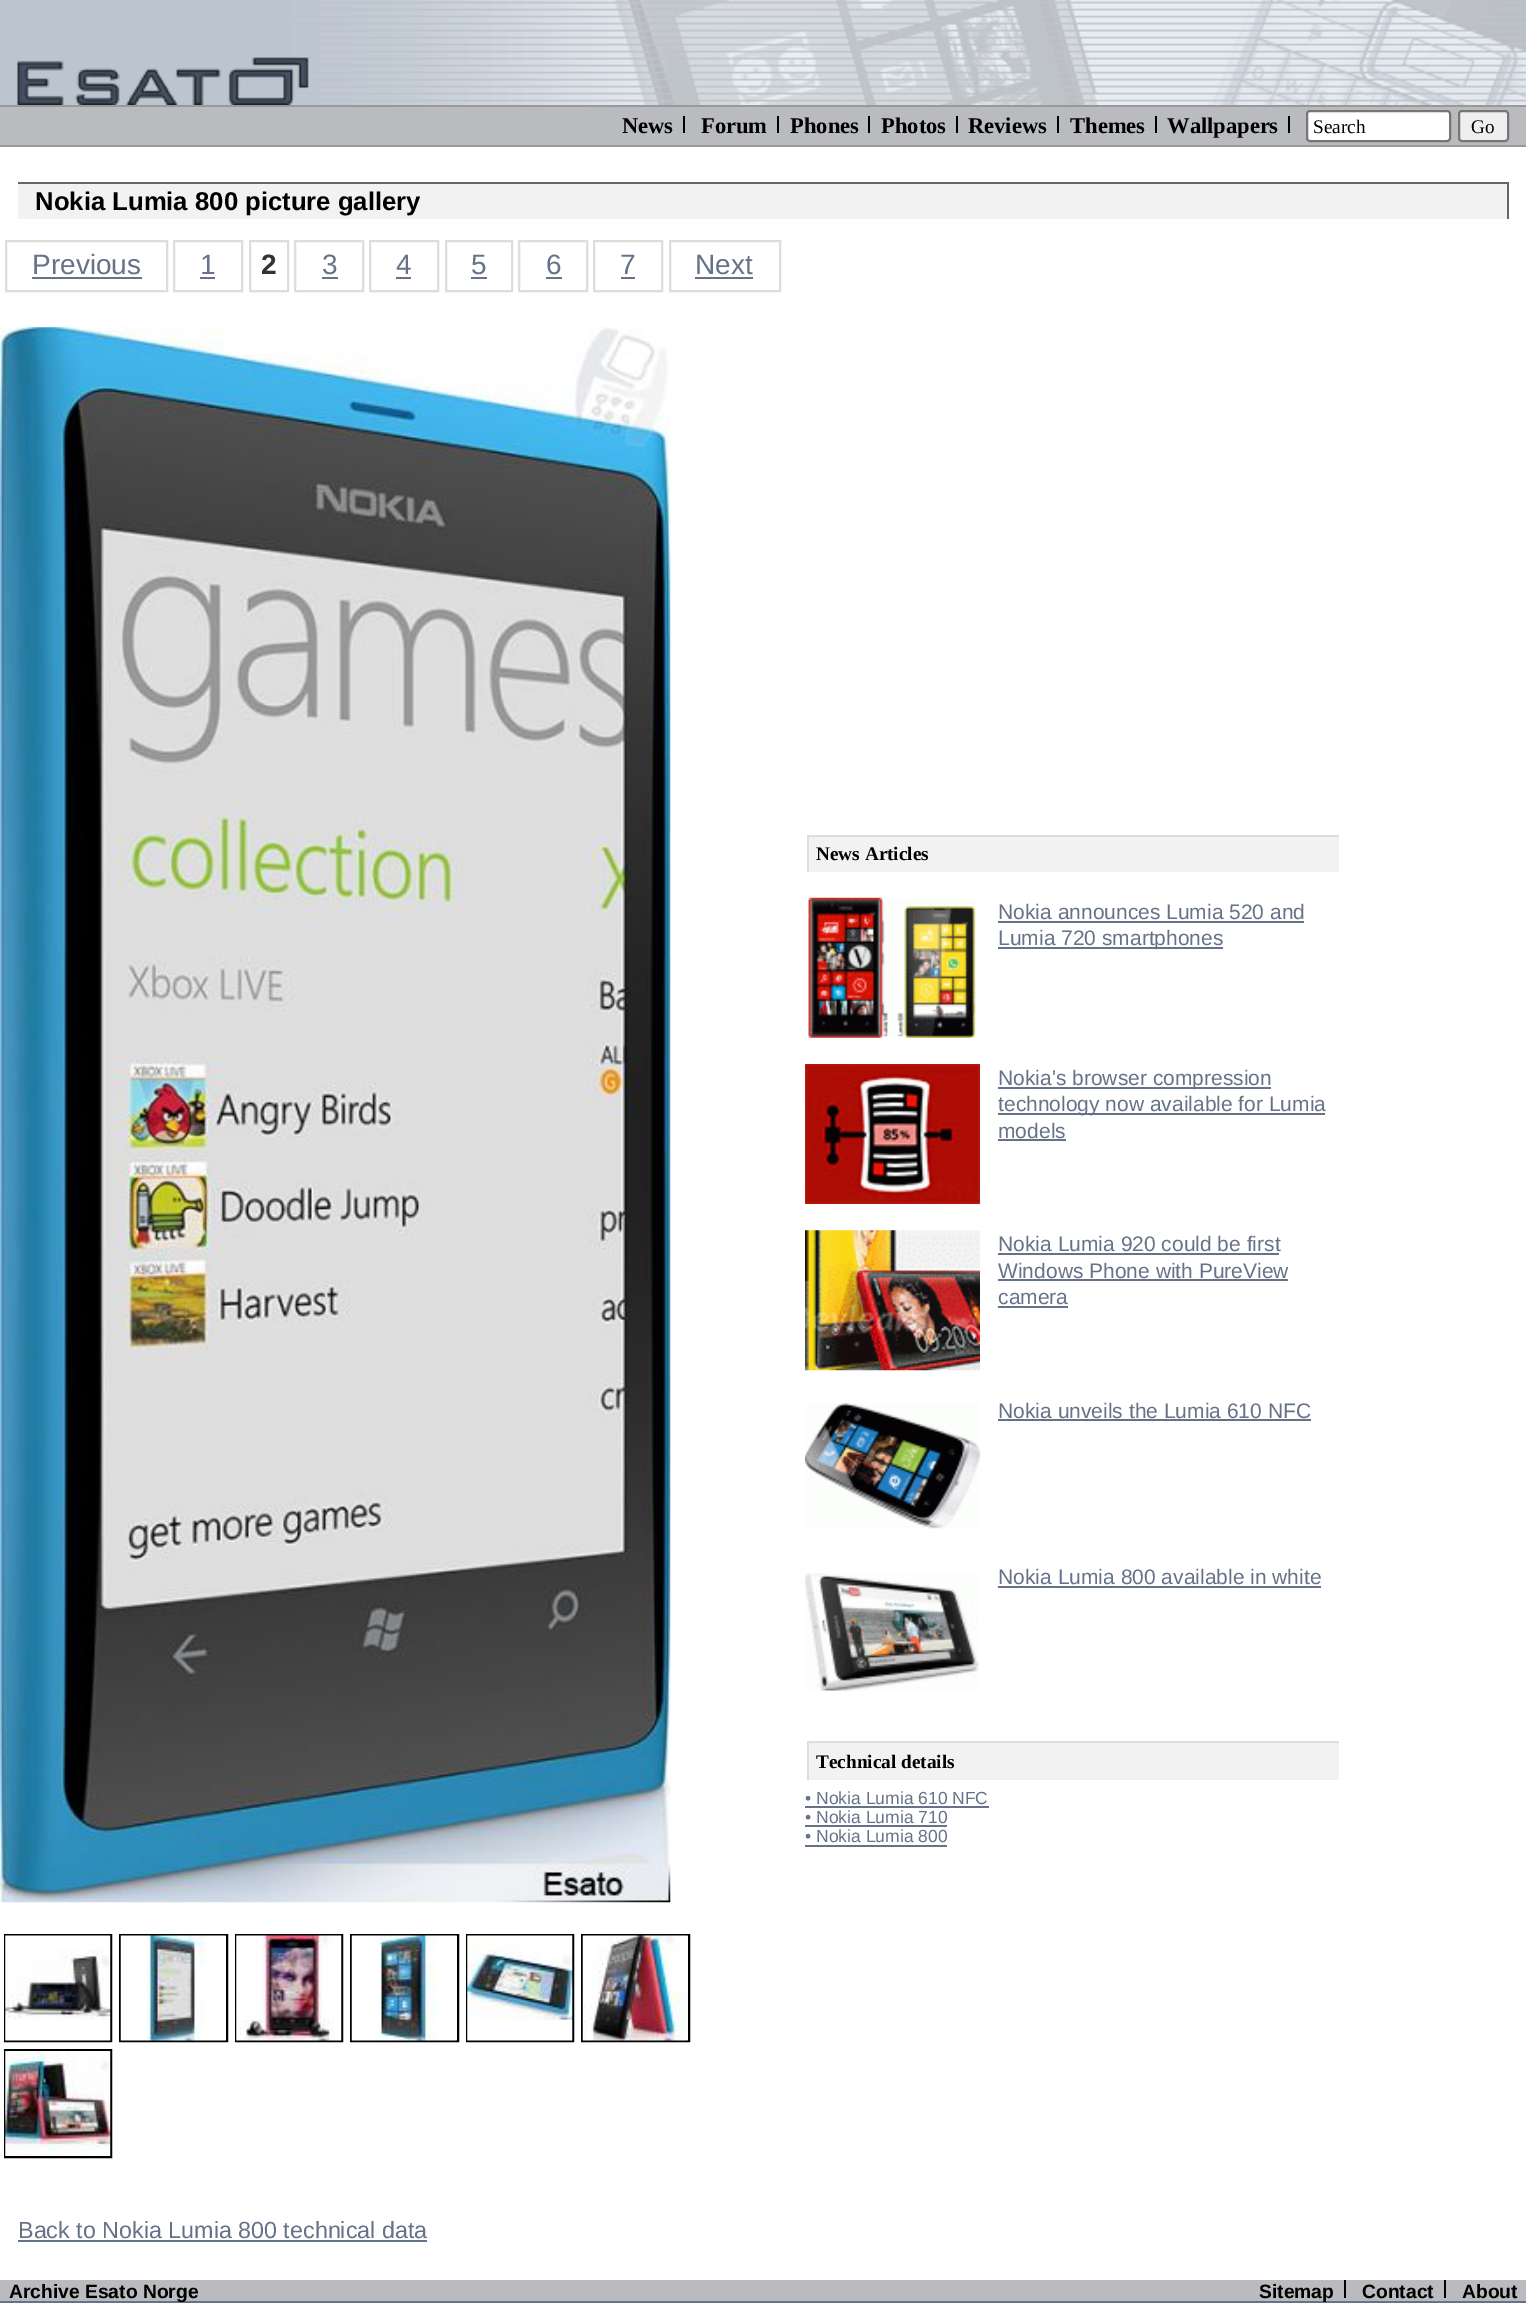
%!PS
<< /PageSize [1526 2303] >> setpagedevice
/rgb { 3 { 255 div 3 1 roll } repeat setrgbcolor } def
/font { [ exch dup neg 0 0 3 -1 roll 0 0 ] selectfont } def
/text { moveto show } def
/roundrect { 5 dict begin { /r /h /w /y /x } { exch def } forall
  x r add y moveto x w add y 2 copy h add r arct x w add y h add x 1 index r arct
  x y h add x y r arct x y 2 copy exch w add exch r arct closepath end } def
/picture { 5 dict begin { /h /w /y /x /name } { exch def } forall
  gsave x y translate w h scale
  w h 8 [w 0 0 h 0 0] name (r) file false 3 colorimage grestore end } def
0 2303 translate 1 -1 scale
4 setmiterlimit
102 114 135 rgb
0 0 1526 2303 rectfill
(img_01.rgb) 0 0 1526 105 picture
185 187 191 rgb
0 107 1526 38 rectfill
153 153 153 rgb
0 105 1526 2 rectfill
0 145 1526 2 rectfill
0 0 0 rgb
683 116 2 17 rectfill
777 116 2 17 rectfill
868 116 2 17 rectfill
956 116 2 17 rectfill
1057 116 2 17 rectfill
1155 116 2 17 rectfill
1288 116 2 17 rectfill
255 255 255 rgb
1307 111 143 30 3 roundrect gsave fill grestore
118 118 118 rgb
2 setlinewidth
stroke
239 239 239 rgb
1459 111 49 30 3 roundrect gsave fill grestore
118 118 118 rgb
stroke
255 255 255 rgb
0 147 1526 2133 rectfill
242 242 242 rgb
18 184 1489 35 rectfill
102 102 102 rgb
18 182 1491 2 rectfill
1507 182 2 37 rectfill
221 221 221 rgb
6 241 161 50 rectstroke
102 114 135 rgb
32 277 110 2 rectfill
221 221 221 rgb
174 241 68 50 rectstroke
102 114 135 rgb
200 277 15 2 rectfill
221 221 221 rgb
250 241 38 50 rectstroke
295 241 68 50 rectstroke
102 114 135 rgb
322 277 16 2 rectfill
221 221 221 rgb
370 241 68 50 rectstroke
102 114 135 rgb
396 277 15 2 rectfill
221 221 221 rgb
446 241 66 50 rectstroke
102 114 135 rgb
471 277 16 2 rectfill
221 221 221 rgb
519 241 68 50 rectstroke
102 114 135 rgb
546 277 16 2 rectfill
221 221 221 rgb
594 241 68 50 rectstroke
102 114 135 rgb
621 277 14 2 rectfill
221 221 221 rgb
670 241 110 50 rectstroke
102 114 135 rgb
695 277 58 2 rectfill
242 242 242 rgb
809 837 530 35 rectfill
221 221 221 rgb
807 835 532 2 rectfill
807 835 2 37 rectfill
(img_02.rgb) 808 897 168 141 picture
102 114 135 rgb
998 921 306 2 rectfill
998 947 225 2 rectfill
(img_03.rgb) 805 1064 175 140 picture
998 1087 273 2 rectfill
998 1113 327 2 rectfill
998 1139 68 2 rectfill
(img_04.rgb) 805 1230 175 141 picture
998 1253 281 2 rectfill
998 1279 290 2 rectfill
998 1306 70 2 rectfill
(img_05.rgb) 805 1403 175 126 picture
998 1419 313 2 rectfill
(img_06.rgb) 805 1573 174 118 picture
998 1586 323 2 rectfill
242 242 242 rgb
809 1743 530 37 rectfill
221 221 221 rgb
807 1741 532 2 rectfill
807 1741 2 39 rectfill
102 114 135 rgb
805 1806 184 2 rectfill
805 1825 142 2 rectfill
805 1845 142 2 rectfill
(img_07.rgb) 0 327 671 1576 picture
0 0 0 rgb
5 1935 106 106 rectstroke
(img_08.rgb) 5 1935 106 106 picture
120 1935 107 106 rectstroke
(img_09.rgb) 120 1935 106 106 picture
236 1935 106 106 rectstroke
(img_10.rgb) 236 1935 106 106 picture
351 1935 107 106 rectstroke
(img_11.rgb) 351 1935 106 106 picture
467 1935 106 106 rectstroke
(img_12.rgb) 467 1935 106 106 picture
582 1935 107 106 rectstroke
(img_13.rgb) 582 1935 106 106 picture
5 2050 106 107 rectstroke
(img_14.rgb) 5 2051 106 105 picture
102 114 135 rgb
18 2240 409 2 rectfill
185 187 191 rgb
0 2280 1526 21 rectfill
0 0 0 rgb
1344 2280 2 18 rectfill
1444 2280 2 18 rectfill
/LiberationSerif-Bold 22.5 font
(News) 622 133 text
(Forum) 701 133 text
(Phones) 790 133 text
(Photos) 881 133 text
(Reviews) 968 133 text
(Themes) 1070 133 text
(Wallpapers) 1167 133 text
/LiberationSerif-Regular 19.25 font
(Search) 1313 133 text
(Go) 1471 133 text
/LiberationSans-Bold 25.7 font
(Nokia Lumia 800 picture gallery) 35 210 text
/LiberationSans-Regular 28 font
102 114 135 rgb
(Previous) 32 274 text
(1) 200 274 text
/LiberationSans-Bold 28 font
51 51 51 rgb
(2) 261 274 text
/LiberationSans-Regular 28 font
102 114 135 rgb
(3) 322 274 text
(4) 396 274 text
(5) 471 274 text
(6) 546 274 text
(7) 620 274 text
(Next) 695 274 text
/LiberationSerif-Bold 19.25 font
0 0 0 rgb
(News Articles) 816 860 text
/LiberationSans-Regular 21 font
102 114 135 rgb
(Nokia announces Lumia 520 and) 998 919 text
(Lumia 720 smartphones) 998 945 text
(Nokia's browser compression) 998 1085 text
(technology now available for Lumia) 998 1111 text
(models) 998 1138 text
(Nokia Lumia 920 could be first) 998 1251 text
(Windows Phone with PureView) 998 1278 text
(camera) 998 1304 text
(Nokia unveils the Lumia 610 NFC) 998 1418 text
(Nokia Lumia 800 available in white) 998 1584 text
/LiberationSerif-Bold 19.25 font
0 0 0 rgb
(Technical details) 816 1768 text
/LiberationSans-Regular 17.5 font
102 114 135 rgb
(• Nokia Lumia 610 NFC) 805 1804 text
(• Nokia Lumia 710) 805 1823 text
(• Nokia Lumia 800) 805 1842 text
/LiberationSans-Regular 23.3 font
(Back to Nokia Lumia 800 technical data) 18 2238 text
/LiberationSans-Bold 19.25 font
0 0 0 rgb
(Archive Esato Norge) 9 2298 text
(Sitemap) 1259 2298 text
(Contact) 1362 2298 text
(About) 1462 2298 text
showpage
